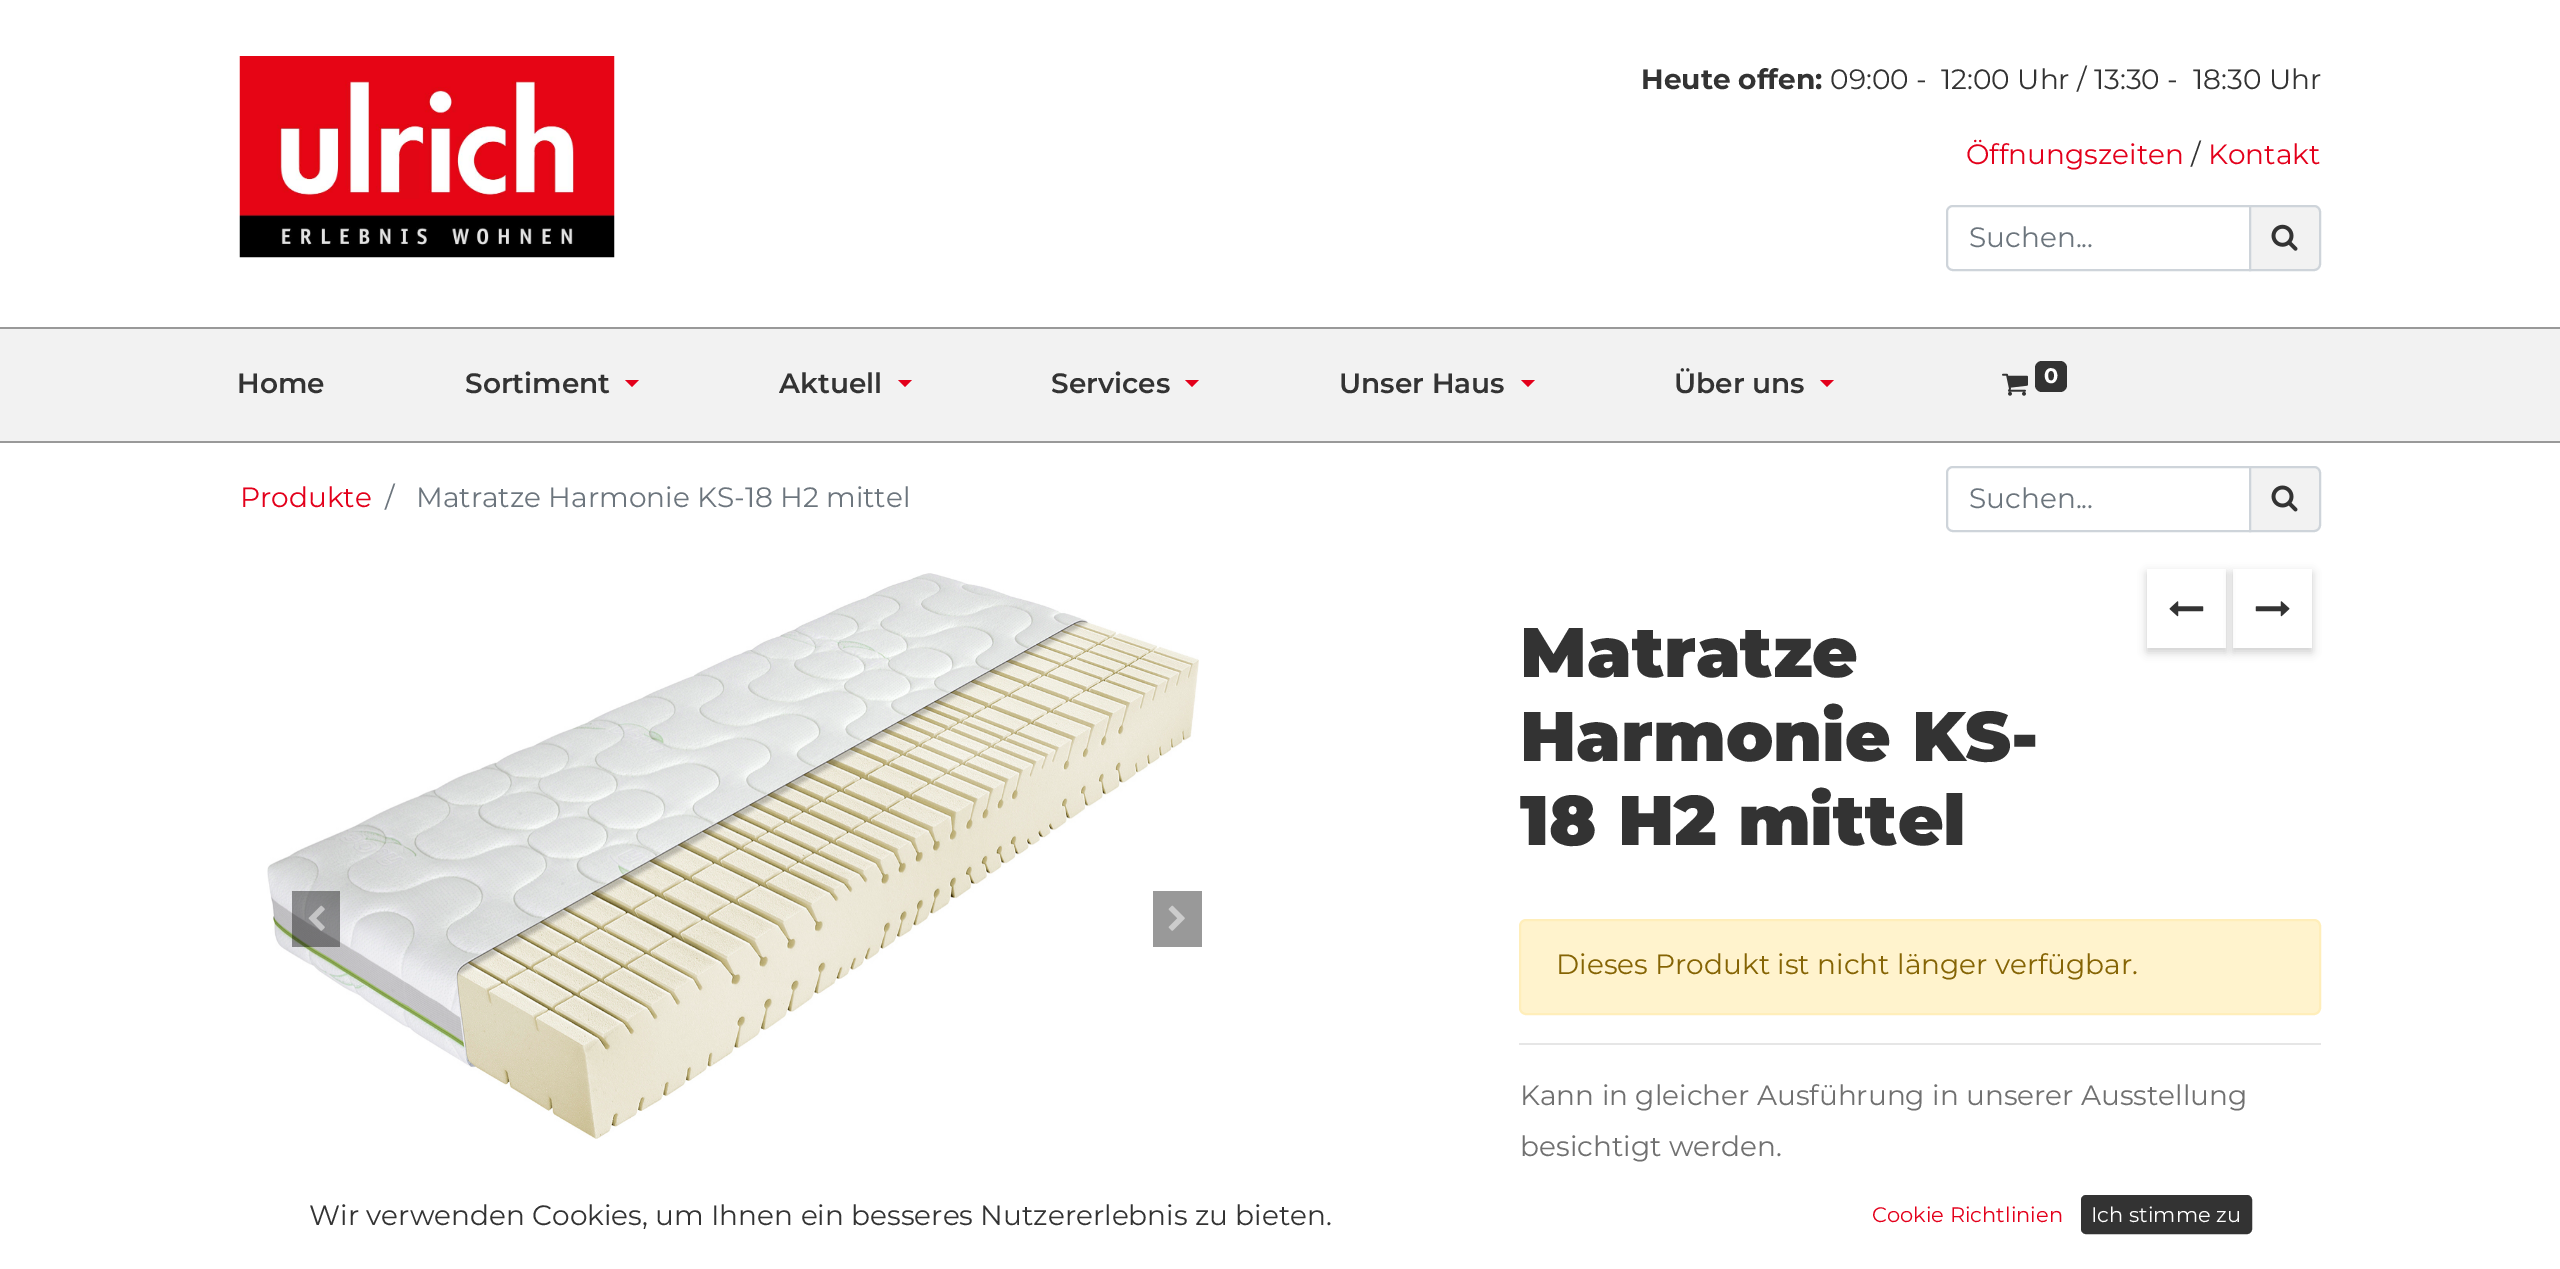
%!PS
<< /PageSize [2560 1269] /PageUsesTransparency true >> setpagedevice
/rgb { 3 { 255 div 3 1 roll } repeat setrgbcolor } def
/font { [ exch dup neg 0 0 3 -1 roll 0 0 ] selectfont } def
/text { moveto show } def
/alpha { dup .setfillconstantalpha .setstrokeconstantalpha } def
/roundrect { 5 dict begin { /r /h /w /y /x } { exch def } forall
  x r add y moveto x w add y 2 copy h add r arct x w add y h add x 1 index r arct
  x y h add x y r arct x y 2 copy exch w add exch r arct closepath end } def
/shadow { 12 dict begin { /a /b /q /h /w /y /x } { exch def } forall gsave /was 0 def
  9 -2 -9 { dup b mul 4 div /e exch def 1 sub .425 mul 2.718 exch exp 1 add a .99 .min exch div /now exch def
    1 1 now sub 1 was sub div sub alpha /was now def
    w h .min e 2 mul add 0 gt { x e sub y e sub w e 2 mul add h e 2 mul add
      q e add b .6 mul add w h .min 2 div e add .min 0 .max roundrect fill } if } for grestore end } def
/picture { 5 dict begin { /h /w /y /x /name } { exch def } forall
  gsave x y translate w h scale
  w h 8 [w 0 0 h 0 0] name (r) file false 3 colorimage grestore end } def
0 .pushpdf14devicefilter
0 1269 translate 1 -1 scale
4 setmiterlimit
255 255 255 rgb
0 0 2560 1269 rectfill
(img_01.rgb) 239 56 376 202 picture
206 212 218 rgb
2 setlinewidth
1953 206 moveto 297 0 rlineto 0 64 rlineto -297 0 rlineto -3.5 0 -6 -2.5 -6 -6 rcurveto 0 -52 rlineto 0 -3.5 2.5 -6 6 -6 rcurveto closepath stroke
242 242 242 rgb
2250 206 moveto 64 0 rlineto 3.5 0 6 2.5 6 6 rcurveto 0 52 rlineto 0 3.5 -2.5 6 -6 6 rcurveto -64 0 rlineto closepath gsave fill grestore
206 212 218 rgb
stroke
(img_02.rgb) 2271 224 27 27 picture
242 242 242 rgb
0 329 2560 112 rectfill
153 153 153 rgb
0 327 2560 2 rectfill
0 441 2560 2 rectfill
227 0 27 rgb
625 380 moveto 14 0 rlineto -7 7 rlineto closepath fill
898 380 moveto 14 0 rlineto -7 7 rlineto closepath fill
1185 380 moveto 14 0 rlineto -7 7 rlineto closepath fill
1521 380 moveto 14 0 rlineto -7 7 rlineto closepath fill
1820 380 moveto 14 0 rlineto -7 7 rlineto closepath fill
(img_03.rgb) 2002 373 26 23 picture
51 51 51 rgb
2035 361 32 31 7 roundrect fill
206 212 218 rgb
1953 467 moveto 297 0 rlineto 0 64 rlineto -297 0 rlineto -3.5 0 -6 -2.5 -6 -6 rcurveto 0 -52 rlineto 0 -3.5 2.5 -6 6 -6 rcurveto closepath stroke
242 242 242 rgb
2250 467 moveto 64 0 rlineto 3.5 0 6 2.5 6 6 rcurveto 0 52 rlineto 0 3.5 -2.5 6 -6 6 rcurveto -64 0 rlineto closepath gsave fill grestore
206 212 218 rgb
stroke
(img_04.rgb) 2271 485 27 27 picture
(img_05.rgb) 267 573 932 566 picture
0.4 alpha
0 0 0 rgb
292 891 48 56 rectfill
1 alpha
(img_06.rgb) 308 905 17 26 picture
153 153 153 rgb
1153 891 49 56 rectfill
(img_07.rgb) 1168 905 17 26 picture
gsave
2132 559 moveto 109 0 rlineto 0 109 rlineto -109 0 rlineto closepath 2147 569 moveto 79 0 rlineto 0 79 rlineto -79 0 rlineto closepath eoclip newpath
0 0 0 rgb
2147 574 79 79 0 4.5 0.1 shadow
grestore
gsave
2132 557 moveto 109 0 rlineto 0 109 rlineto -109 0 rlineto closepath 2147 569 moveto 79 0 rlineto 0 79 rlineto -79 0 rlineto closepath eoclip newpath
0 0 0 rgb
2147 572 79 79 0 4.5 0.1 shadow
grestore
(img_08.rgb) 2169 601 35 16 picture
gsave
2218 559 moveto 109 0 rlineto 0 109 rlineto -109 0 rlineto closepath 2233 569 moveto 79 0 rlineto 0 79 rlineto -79 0 rlineto closepath eoclip newpath
0 0 0 rgb
2233 574 79 79 0 4.5 0.1 shadow
grestore
gsave
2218 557 moveto 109 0 rlineto 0 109 rlineto -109 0 rlineto closepath 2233 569 moveto 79 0 rlineto 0 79 rlineto -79 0 rlineto closepath eoclip newpath
0 0 0 rgb
2233 572 79 79 0 4.5 0.1 shadow
grestore
(img_09.rgb) 2255 601 35 16 picture
255 243 205 rgb
1520 920 800 94 6 roundrect gsave fill grestore
255 238 186 rgb
stroke
230 230 230 rgb
1519 1043 802 2 rectfill
51 51 51 rgb
2082 1196 169 37 4 roundrect gsave fill grestore
stroke
/Montserrat-Bold 28 font
(Heute offen:) 1641 89 text
/Montserrat-Regular 28 font
(09:00 -) 1830 89 text
(12:00 Uhr / 13:30 -) 1941 89 text
(18:30 Uhr) 2193 89 text
227 0 27 rgb
(Öffnungszeiten) 1966 164 text
51 51 51 rgb
(/) 2191 164 text
227 0 27 rgb
(Kontakt) 2208 164 text
108 117 125 rgb
(Suchen...) 1969 247 text
/Montserrat-SemiBold 28 font
51 51 51 rgb
(Home) 237 393 text
(Sortiment) 465 393 text
(Aktuell) 779 393 text
(Services) 1051 393 text
(Unser Haus) 1339 393 text
(Über uns) 1674 393 text
/Montserrat-Bold 21 font
255 255 255 rgb
(0) 2044 383 text
/Montserrat-Regular 28 font
227 0 27 rgb
(Produkte) 240 507 text
108 117 125 rgb
(/) 385 507 text
(Matratze Harmonie KS-18 H2 mittel) 416 507 text
(Suchen...) 1969 508 text
/Montserrat-Black 70 font
51 51 51 rgb
(Matratze) 1520 677 text
(Harmonie KS-) 1520 761 text
(18 H2 mittel) 1520 845 text
/Montserrat-Regular 28 font
133 100 4 rgb
(Dieses Produkt ist nicht länger verfügbar.) 1556 974 text
112 112 112 rgb
(Kann in gleicher Ausführung in unserer Ausstellung) 1520 1105 text
(besichtigt werden.) 1520 1156 text
51 51 51 rgb
(Wir verwenden Cookies, um Ihnen ein besseres Nutzererlebnis zu bieten.) 309 1225 text
/Montserrat-Regular 21 font
227 0 27 rgb
(Cookie Richtlinien) 1872 1222 text
255 255 255 rgb
(Ich stimme zu) 2091 1222 text
.poppdf14devicefilter showpage
